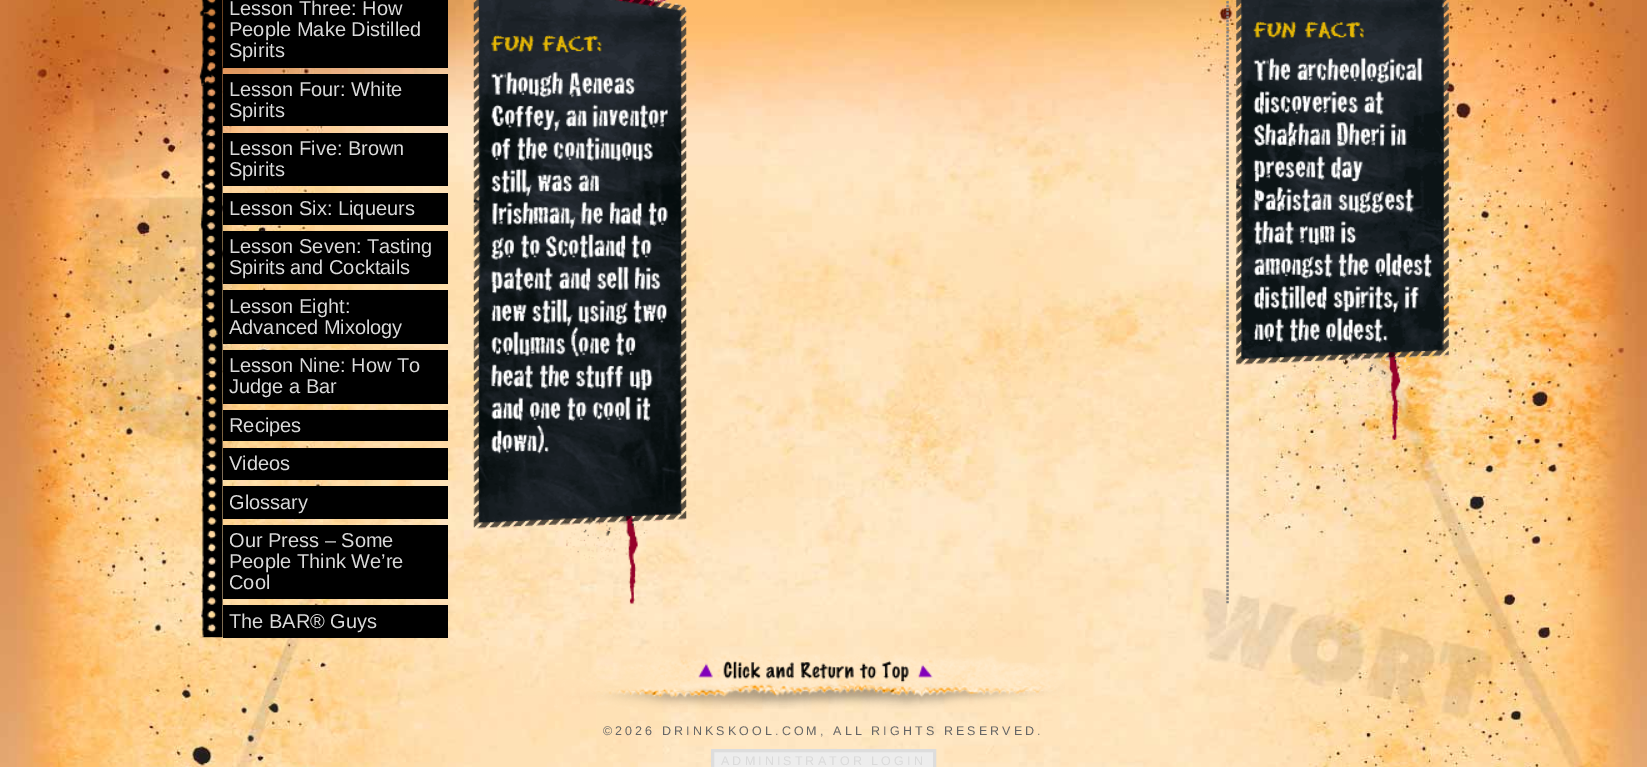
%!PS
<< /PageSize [1647 767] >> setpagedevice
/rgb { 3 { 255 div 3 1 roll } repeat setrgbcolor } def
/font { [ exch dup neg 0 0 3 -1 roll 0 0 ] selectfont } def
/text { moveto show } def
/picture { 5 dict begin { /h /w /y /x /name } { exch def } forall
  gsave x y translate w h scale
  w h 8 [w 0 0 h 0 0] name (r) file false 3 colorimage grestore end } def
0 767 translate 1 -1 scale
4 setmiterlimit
255 255 255 rgb
0 0 1647 767 rectfill
(img_01.rgb) 0 0 1647 767 picture
(img_02.rgb) 198 0 25 638 picture
0 0 0 rgb
223 0 225 68 rectfill
223 74 225 52 rectfill
223 133 225 53 rectfill
223 193 225 32 rectfill
223 231 225 53 rectfill
223 290 225 54 rectfill
223 350 225 54 rectfill
223 410 225 31 rectfill
223 448 225 32 rectfill
223 486 225 33 rectfill
223 525 225 74 rectfill
223 605 225 33 rectfill
(img_03.rgb) 1226 0 3 604 picture
(img_04.rgb) 473 0 214 604 picture
(img_05.rgb) 1236 0 213 440 picture
(img_06.rgb) 554 654 511 55 picture
237 237 237 rgb
712.5 750.5 moveto 222 0 rlineto 0 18 rlineto -222 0 rlineto closepath gsave fill grestore
221 221 221 rgb
3 setlinewidth
stroke
/LiberationSans-Regular 20 font
218 218 218 rgb
(Lesson Three: How) 229 15 text
(People Make Distilled) 229 36 text
(Spirits) 229 57 text
(Lesson Four: White) 229 96 text
(Spirits) 229 117 text
(Lesson Five: Brown) 229 155 text
(Spirits) 229 176 text
(Lesson Six: Liqueurs) 229 215 text
(Lesson Seven: Tasting) 229 253 text
(Spirits and Cocktails) 229 274 text
(Lesson Eight:) 229 313 text
(Advanced Mixology) 229 334 text
(Lesson Nine: How To) 229 372 text
(Judge a Bar) 229 393 text
(Recipes) 229 432 text
(Videos) 229 470 text
(Glossary) 229 509 text
(Our Press – Some) 229 547 text
(People Think We’re) 229 568 text
(Cool) 229 589 text
(The BAR® Guys) 229 628 text
/LiberationSans-Regular 12.5 font
102 102 102 rgb
603 735 moveto 3.1 0 (©2026 DRINKSKOOL.COM, ALL RIGHTS RESERVED.) ashow
218 218 218 rgb
721 765 moveto 3.1 0 (ADMINISTRATOR LOGIN) ashow
showpage
